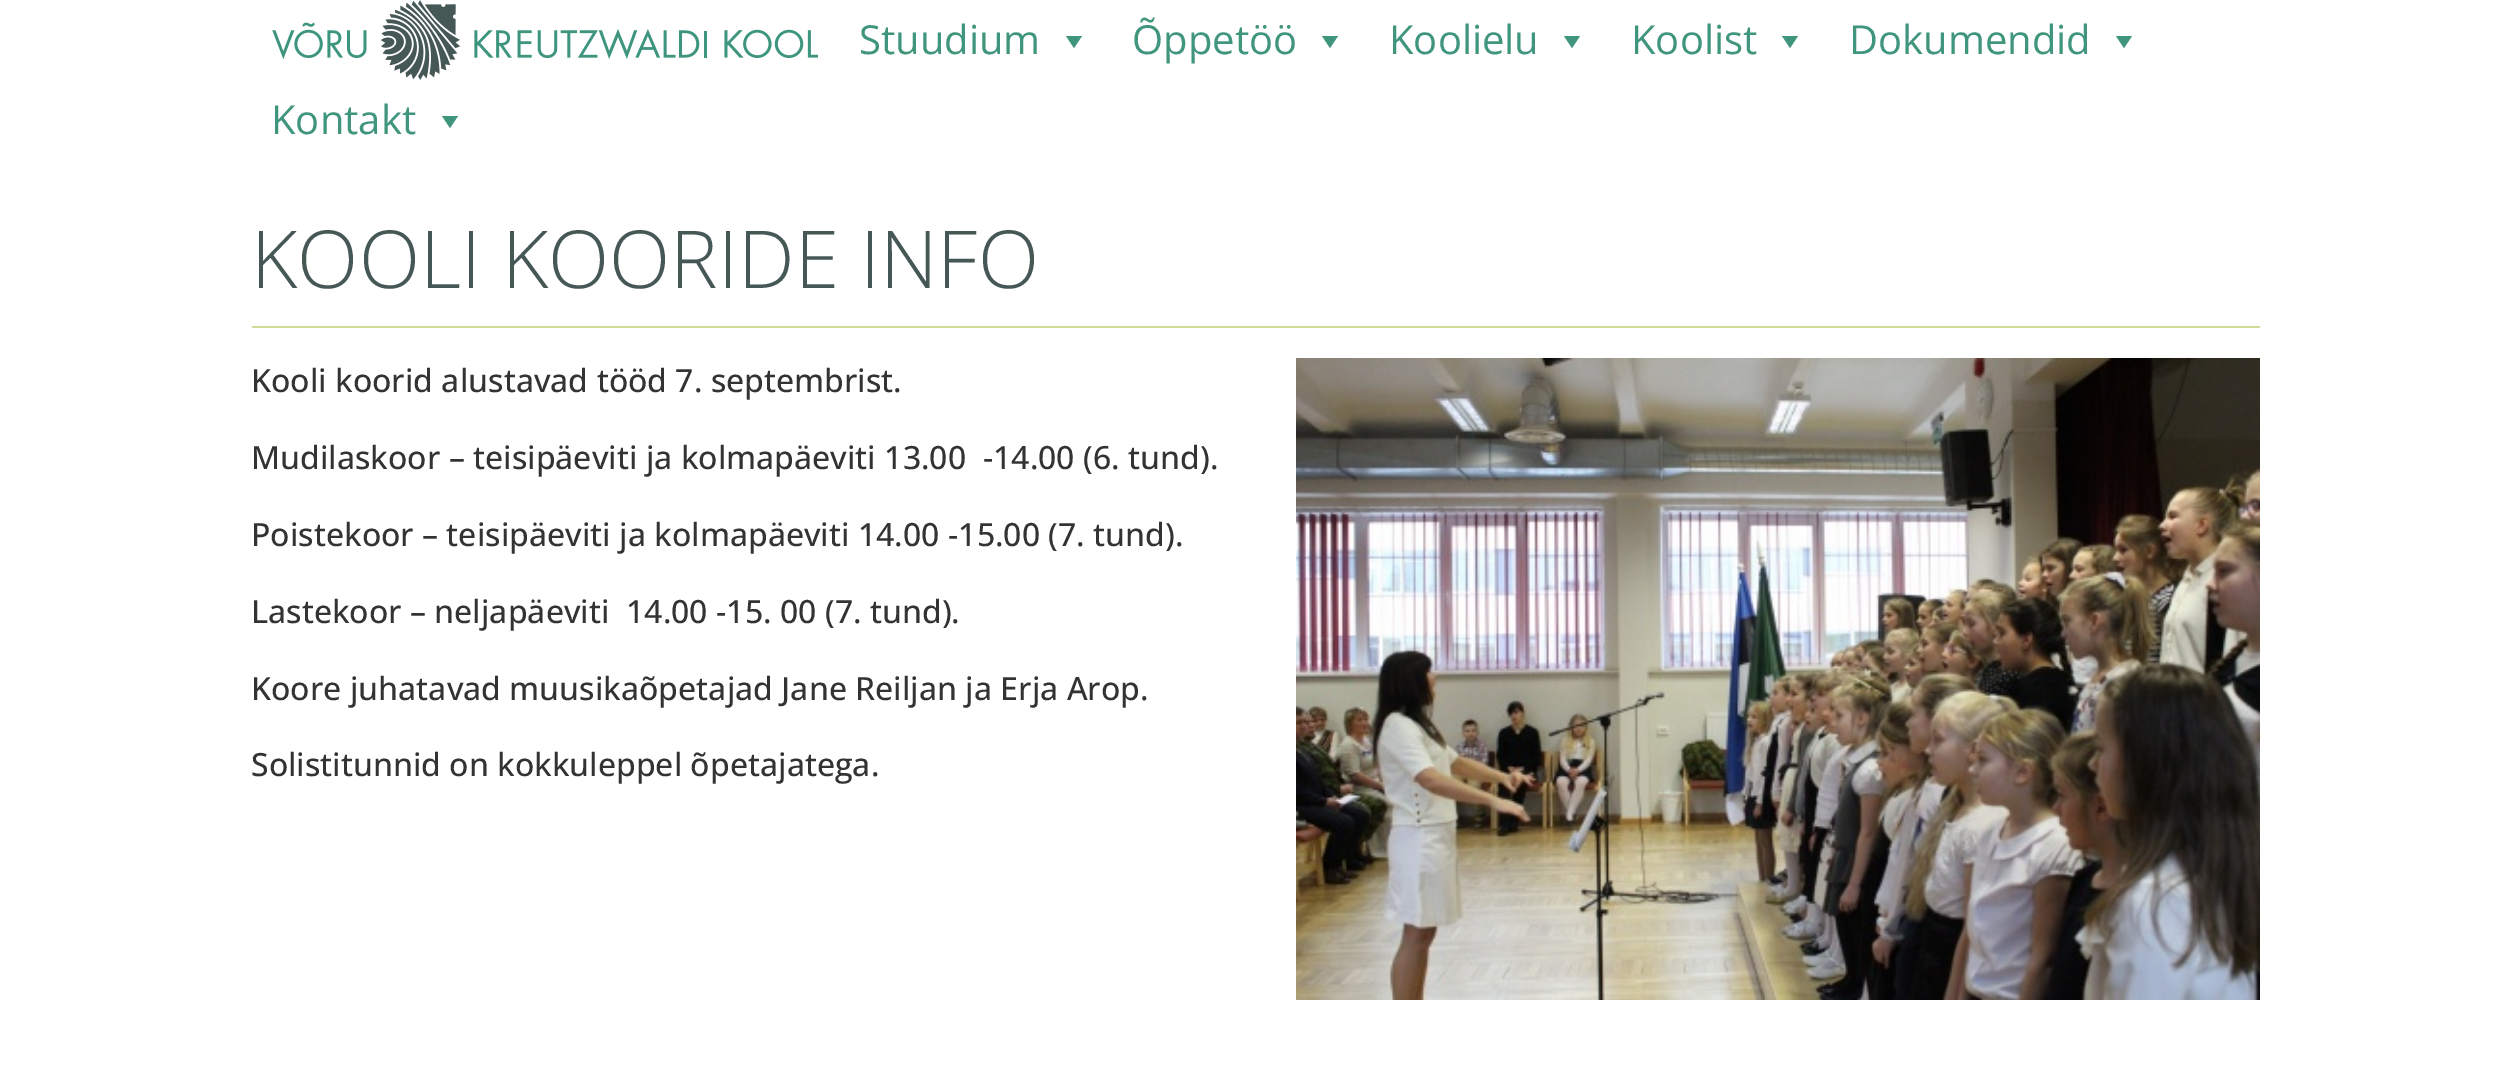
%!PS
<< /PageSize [2509 1081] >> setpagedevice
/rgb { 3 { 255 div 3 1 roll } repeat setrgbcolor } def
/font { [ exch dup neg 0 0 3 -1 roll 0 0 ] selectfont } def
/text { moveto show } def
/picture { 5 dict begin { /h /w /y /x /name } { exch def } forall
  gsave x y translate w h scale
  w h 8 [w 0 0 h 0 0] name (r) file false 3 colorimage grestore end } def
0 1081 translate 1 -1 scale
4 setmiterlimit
255 255 255 rgb
0 0 2509 1081 rectfill
(img_01.rgb) 272 0 546 80 picture
64 149 125 rgb
1082 36 moveto -8 12 rlineto -8 -12 rlineto closepath fill
1338 36 moveto -8 12 rlineto -8 -12 rlineto closepath fill
1580 36 moveto -8 12 rlineto -8 -12 rlineto closepath fill
1798 36 moveto -8 12 rlineto -8 -12 rlineto closepath fill
2132 36 moveto -8 12 rlineto -8 -12 rlineto closepath fill
458 116 moveto -8 12 rlineto -8 -12 rlineto closepath fill
209 219 151 rgb
252 326 2008 2 rectfill
(img_02.rgb) 1296 358 964 642 picture
/OpenSans-Regular 40 font
64 149 125 rgb
(Stuudium) 859 54 text
(Õppetöö) 1132 54 text
(Koolielu) 1389 54 text
(Koolist) 1631 54 text
(Dokumendid) 1849 54 text
(Kontakt) 271 134 text
/OpenSans-Light 80 font
70 88 85 rgb
(KOOLI KOORIDE INFO) 251 288 text
/OpenSans-Medium 32 font
51 51 51 rgb
(Kooli koorid alustavad tööd 7. septembrist.) 251 392 text
(Mudilaskoor – teisipäeviti ja kolmapäeviti 13.00  -14.00 \(6. tund\).) 251 469 text
(Poistekoor – teisipäeviti ja kolmapäeviti 14.00 -15.00 \(7. tund\).) 251 546 text
(Lastekoor – neljapäeviti  14.00 -15. 00 \(7. tund\).) 251 623 text
(Koore juhatavad muusikaõpetajad Jane Reiljan ja Erja Arop.) 251 700 text
(Solistitunnid on kokkuleppel õpetajatega.) 251 776 text
showpage
